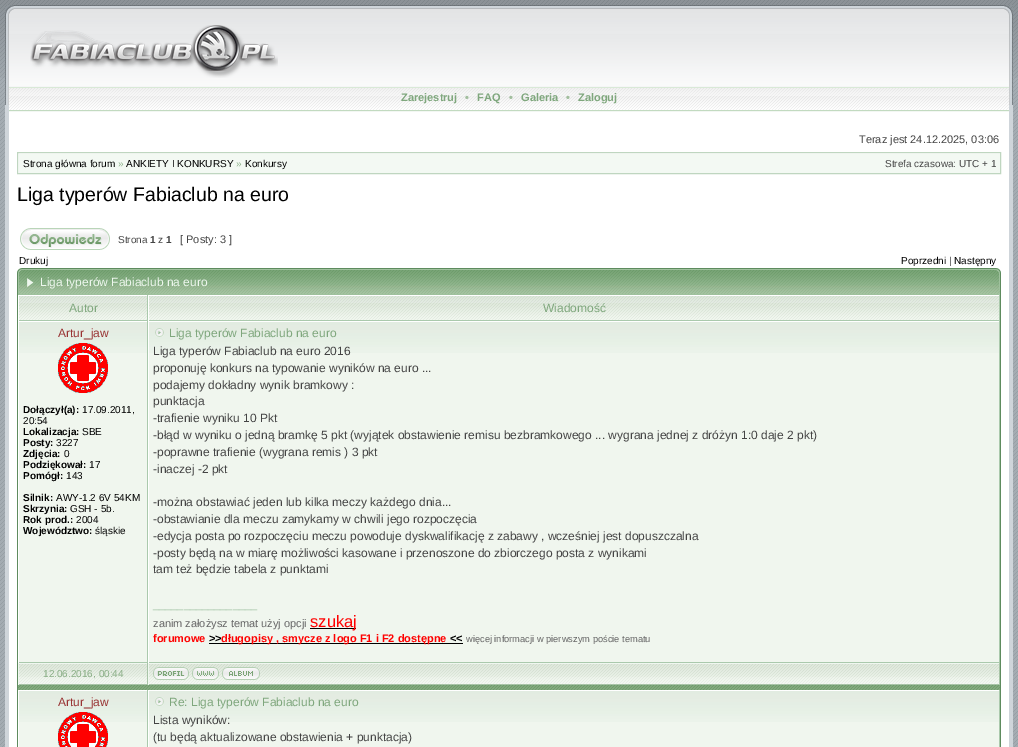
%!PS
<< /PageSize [1018 747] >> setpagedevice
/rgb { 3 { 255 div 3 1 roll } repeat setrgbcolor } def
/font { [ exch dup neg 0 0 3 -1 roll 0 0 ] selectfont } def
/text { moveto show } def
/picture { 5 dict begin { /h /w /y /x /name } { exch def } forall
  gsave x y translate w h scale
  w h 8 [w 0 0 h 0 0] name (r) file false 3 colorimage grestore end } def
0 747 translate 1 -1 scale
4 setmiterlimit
255 255 255 rgb
0 0 1018 747 rectfill
(img_01.rgb) 0 78 1018 669 picture
(img_02.rgb) 0 0 1018 78 picture
9 112 1000 635 rectfill
207 213 218 rgb
5 105 4 642 rectfill
(img_03.rgb) 5 5 4 100 picture
(img_04.rgb) 9 5 1000 82 picture
(img_05.rgb) 9 5 5 9 picture
(img_06.rgb) 1004 5 5 10 picture
(img_07.rgb) 30 25 248 53 picture
(img_08.rgb) 9 87 1000 25 picture
1009 105 4 642 rectfill
(img_09.rgb) 1009 5 4 100 picture
191 214 192 rgb
17.5 152.5 983 21 rectstroke
243 249 243 rgb
19 154 981 19 rectfill
(img_10.rgb) 20 228 90 22 picture
(img_11.rgb) 18 268 982 27 picture
(img_12.rgb) 17 268 17 27 picture
(img_13.rgb) 996 268 5 27 picture
94 139 94 rgb
1000 295 1 452 rectfill
17 295 1 452 rectfill
(img_14.rgb) 19 296 128 24 picture
170 201 172 rgb
147 295 1 368 rectfill
18 320 130 1 rectfill
255 255 255 rgb
18 320 1 1 rectfill
(img_15.rgb) 149 296 850 24 picture
170 201 172 rgb
999 295 1 368 rectfill
148 320 852 1 rectfill
255 255 255 rgb
148 320 1 1 rectfill
240 246 238 rgb
19 353 128 309 rectfill
(img_16.rgb) 19 322 128 31 picture
170 201 172 rgb
18 662 982 1 rectfill
255 255 255 rgb
18 662 1 1 rectfill
(img_17.rgb) 58 343 50 50 picture
240 246 238 rgb
149 353 850 309 rectfill
(img_18.rgb) 149 322 850 31 picture
255 255 255 rgb
148 662 1 1 rectfill
(img_19.rgb) 155 328 9 9 picture
0 0 0 rgb
310 628 46 1 rectfill
209 643 254 1 rectfill
(img_20.rgb) 19 664 128 20 picture
240 247 240 rgb
18 663 982 1 rectfill
168 196 167 rgb
147 663 1 22 rectfill
18 684 130 1 rectfill
240 247 240 rgb
18 663 1 22 rectfill
(img_21.rgb) 149 664 850 20 picture
168 196 167 rgb
999 663 1 22 rectfill
148 684 852 1 rectfill
240 247 240 rgb
148 663 1 22 rectfill
(img_22.rgb) 153 667 36 13 picture
(img_23.rgb) 192 667 27 13 picture
(img_24.rgb) 222 667 38 13 picture
(img_25.rgb) 18 685 982 5 picture
240 246 238 rgb
19 722 128 25 rectfill
(img_16.rgb) 19 691 128 31 picture
170 201 172 rgb
147 690 1 57 rectfill
(img_26.rgb) 58 712 50 35 picture
240 246 238 rgb
149 722 850 25 rectfill
(img_18.rgb) 149 691 850 31 picture
170 201 172 rgb
999 690 1 57 rectfill
(img_19.rgb) 155 697 9 9 picture
/LiberationSans-Bold 11 font
127 167 125 rgb
(Zarejestruj) 401 101 text
161 190 157 rgb
(•) 465 101 text
127 167 125 rgb
(FAQ) 477 101 text
161 190 157 rgb
(•) 509 101 text
127 167 125 rgb
(Galeria) 521 101 text
161 190 157 rgb
(•) 566 101 text
127 167 125 rgb
(Zaloguj) 578 101 text
/LiberationSans-Regular 11 font
68 68 68 rgb
(Teraz jest 24.12.2025, 03:06) 859 143 text
/LiberationSans-Regular 10 font
0 0 0 rgb
(Strona główna forum) 23 167 text
142 179 139 rgb
(») 118 167 text
0 0 0 rgb
(ANKIETY I KONKURSY) 126 167 text
142 179 139 rgb
(») 236 167 text
0 0 0 rgb
(Konkursy) 245 167 text
68 68 68 rgb
(Strefa czasowa: UTC + 1) 885 167 text
/LiberationSans-Regular 19.5 font
0 0 0 rgb
(Liga typerów Fabiaclub na euro) 17 201 text
/LiberationSans-Regular 10 font
68 68 68 rgb
(Strona) 118 243 text
/LiberationSans-Bold 10 font
(1) 150 243 text
/LiberationSans-Regular 10 font
(z) 158 243 text
/LiberationSans-Bold 10 font
(1) 166 243 text
/LiberationSans-Regular 11 font
([ Posty: 3 ]) 180 243 text
/LiberationSans-Regular 10 font
0 0 0 rgb
(Drukuj) 19 264 text
(Poprzedni) 901 264 text
68 68 68 rgb
(|) 949 264 text
0 0 0 rgb
(Następny) 954 264 text
/LiberationSans-Regular 12 font
238 247 238 rgb
(Liga typerów Fabiaclub na euro) 40 286 text
127 167 125 rgb
(Autor) 69 312 text
(Wiadomość) 543 312 text
153 51 51 rgb
(Artur_jaw) 58 337 text
/LiberationSans-Bold 10 font
0 0 0 rgb
(Dołączył\(a\):) 23 413 text
/LiberationSans-Regular 10 font
(17.09.2011,) 82 413 text
(20:54) 23 424 text
/LiberationSans-Bold 10 font
(Lokalizacja:) 23 435 text
/LiberationSans-Regular 10 font
(SBE) 82 435 text
/LiberationSans-Bold 10 font
(Posty:) 23 446 text
/LiberationSans-Regular 10 font
(3227) 56 446 text
/LiberationSans-Bold 10 font
(Zdjęcia:) 23 457 text
/LiberationSans-Regular 10 font
(0) 64 457 text
/LiberationSans-Bold 10 font
(Podziękował:) 23 468 text
/LiberationSans-Regular 10 font
(17) 89 468 text
/LiberationSans-Bold 10 font
(Pomógł:) 23 479 text
/LiberationSans-Regular 10 font
(143) 66 479 text
/LiberationSans-Bold 10 font
(Silnik:) 23 501 text
/LiberationSans-Regular 10 font
(AWY-1.2 6V 54KM) 56 501 text
/LiberationSans-Bold 10 font
(Skrzynia:) 23 512 text
/LiberationSans-Regular 10 font
(GSH - 5b.) 70 512 text
/LiberationSans-Bold 10 font
(Rok prod.:) 23 523 text
/LiberationSans-Regular 10 font
(2004) 76 523 text
/LiberationSans-Bold 10 font
(Województwo:) 23 534 text
/LiberationSans-Regular 10 font
(śląskie) 95 534 text
/LiberationSans-Regular 12 font
127 167 125 rgb
(Liga typerów Fabiaclub na euro) 169 337 text
68 68 68 rgb
(Liga typerów Fabiaclub na euro 2016) 153 355 text
(proponuję konkurs na typowanie wyników na euro ...) 153 372 text
(podajemy dokładny wynik bramkowy :) 153 389 text
(punktacja) 153 405 text
(-trafienie wyniku 10 Pkt) 153 422 text
(-błąd w wyniku o jedną bramkę 5 pkt \(wyjątek obstawienie remisu bezbramkowego ... wygrana jednej z dróżyn 1:0 daje 2 pkt\)) 153 439 text
(-poprawne trafienie \(wygrana remis \) 3 pkt) 153 456 text
(-inaczej -2 pkt) 153 473 text
(-można obstawiać jeden lub kilka meczy każdego dnia...) 153 506 text
(-obstawianie dla meczu zamykamy w chwili jego rozpoczęcia) 153 523 text
(-edycja posta po rozpoczęciu meczu powoduje dyskwalifikację z zabawy , wcześniej jest dopuszczalna) 153 540 text
(-posty będą na w miarę możliwości kasowane i przenoszone do zbiorczego posta z wynikami) 153 557 text
(tam też będzie tabela z punktami) 153 573 text
/LiberationSans-Regular 11 font
170 201 172 rgb
(_________________) 153 608 text
102 102 102 rgb
(zanim założysz temat użyj opcji) 153 627 text
/LiberationSans-Regular 16.5 font
255 0 0 rgb
(szukaj) 310 627 text
/LiberationSans-Bold 11 font
(forumowe) 153 642 text
0 0 0 rgb
(>>) 209 642 text
255 0 0 rgb
(długopisy , smycze z logo F1 i F2 dostępne) 221 642 text
0 0 0 rgb
(<<) 450 642 text
/LiberationSans-Regular 9.3 font
102 102 102 rgb
(więcej informacji w pierwszym poście tematu) 466 642 text
/LiberationSans-Regular 10 font
136 173 132 rgb
(12.06.2016, 00:44) 43 677 text
/LiberationSans-Regular 12 font
153 51 51 rgb
(Artur_jaw) 58 706 text
127 167 125 rgb
(Re: Liga typerów Fabiaclub na euro) 169 706 text
68 68 68 rgb
(Lista wyników:) 153 724 text
(\(tu będą aktualizowane obstawienia + punktacja\)) 153 741 text
showpage
